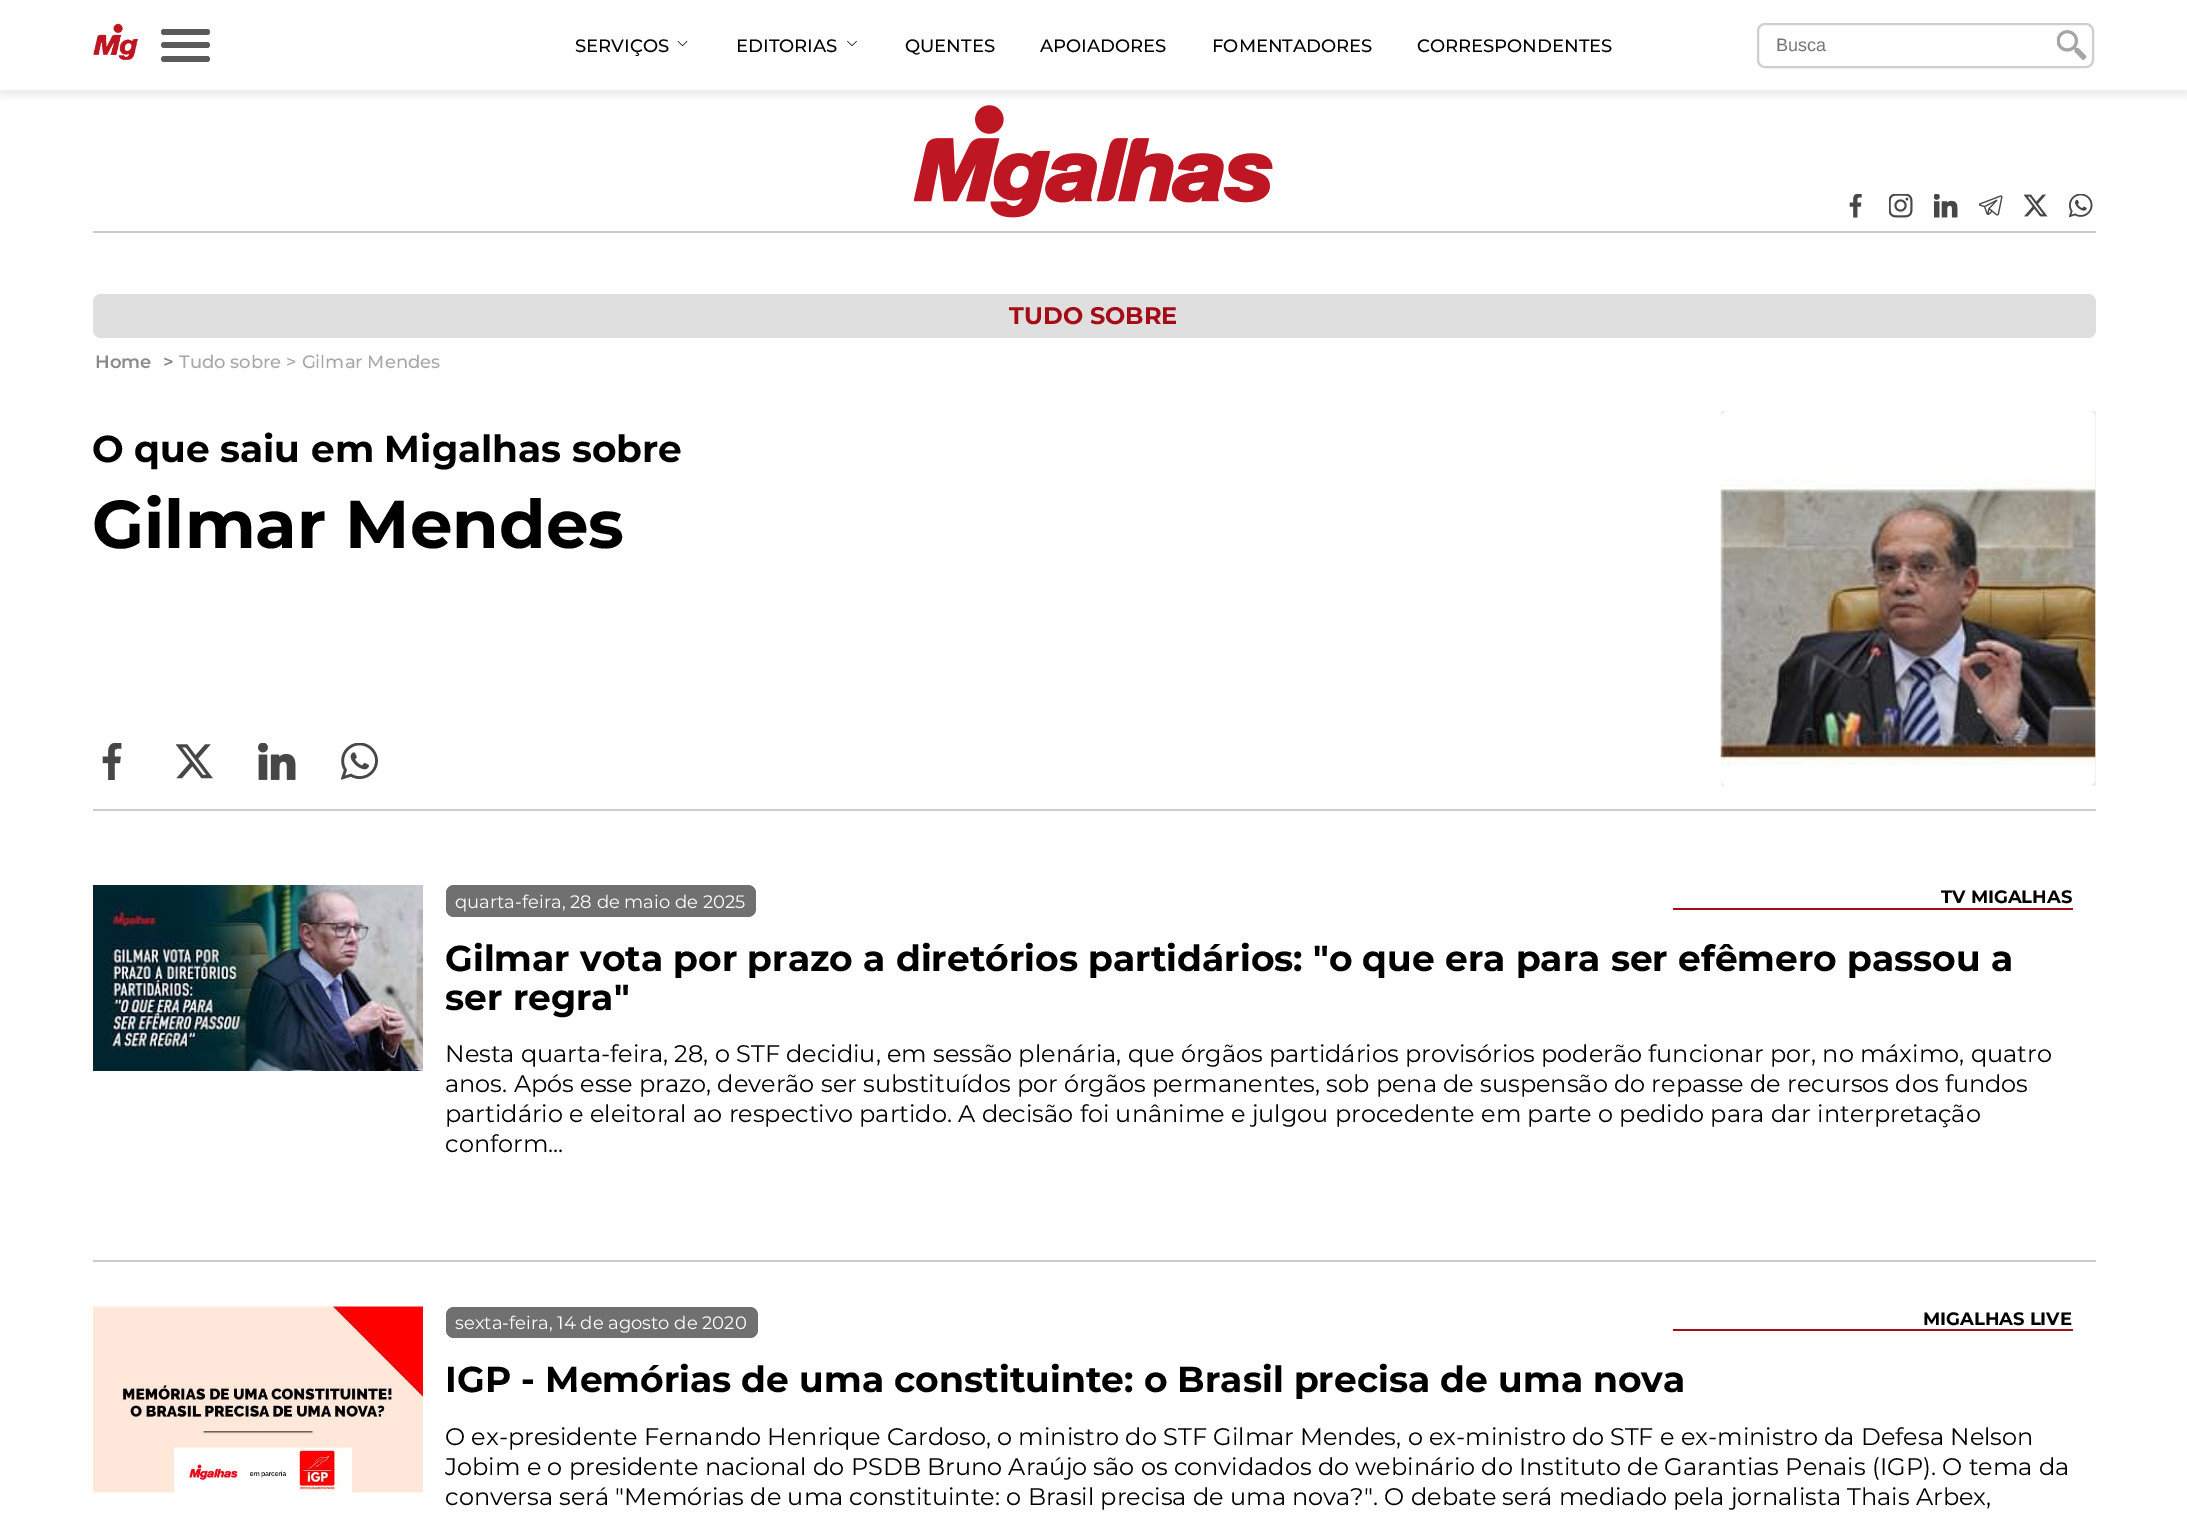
%!PS
<< /PageSize [2187 1517] /PageUsesTransparency true >> setpagedevice
/rgb { 3 { 255 div 3 1 roll } repeat setrgbcolor } def
/font { [ exch dup neg 0 0 3 -1 roll 0 0 ] selectfont } def
/text { moveto show } def
/alpha { dup .setfillconstantalpha .setstrokeconstantalpha } def
/roundrect { 5 dict begin { /r /h /w /y /x } { exch def } forall
  x r add y moveto x w add y 2 copy h add r arct x w add y h add x 1 index r arct
  x y h add x y r arct x y 2 copy exch w add exch r arct closepath end } def
/shadow { 12 dict begin { /a /b /q /h /w /y /x } { exch def } forall gsave /was 0 def
  9 -2 -9 { dup b mul 4 div /e exch def 1 sub .425 mul 2.718 exch exp 1 add a .99 .min exch div /now exch def
    1 1 now sub 1 was sub div sub alpha /was now def
    w h .min e 2 mul add 0 gt { x e sub y e sub w e 2 mul add h e 2 mul add
      q e add b .6 mul add w h .min 2 div e add .min 0 .max roundrect fill } if } for grestore end } def
/picture { 5 dict begin { /h /w /y /x /name } { exch def } forall
  gsave x y translate w h scale
  w h 8 [w 0 0 h 0 0] name (r) file false 3 colorimage grestore end } def
0 .pushpdf14devicefilter
0 1517 translate 1 -1 scale
4 setmiterlimit
255 255 255 rgb
0 0 2187 1517 rectfill
(img_05.rgb) 914 105 359 113 picture
gsave
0 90 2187 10 rectclip
122 122 122 rgb
0 5 2187 90 0 4.5 0.16 shadow
grestore
(img_01.rgb) 93 23 45 38 picture
90 90 90 rgb
161 29 49 6 3 roundrect fill
161 42 49 6 3 roundrect fill
161 56 49 6 3 roundrect fill
(img_02.rgb) 677 40 11 7 picture
(img_03.rgb) 847 40 10 7 picture
206 206 206 rgb
2 setlinewidth
1758 24 335 43 7 roundrect stroke
(img_04.rgb) 2057 30 30 30 picture
204 204 204 rgb
93 231 2003 2 rectfill
(img_06.rgb) 1849 194 13 24 picture
(img_07.rgb) 1889 194 24 24 picture
(img_08.rgb) 1934 194 24 24 picture
(img_09.rgb) 1979 195 24 21 picture
(img_10.rgb) 2024 194 24 23 picture
(img_11.rgb) 2069 194 24 24 picture
223 223 223 rgb
93 294 2003 44 8 roundrect fill
204 204 204 rgb
93 809 2003 2 rectfill
(img_12.rgb) 102 743 20 37 picture
(img_13.rgb) 176 744 37 35 picture
(img_14.rgb) 258 743 38 37 picture
(img_15.rgb) 341 743 37 37 picture
237 237 237 rgb
1721 411 375 375 rectfill
(img_16.rgb) 1720 411 376 375 picture
204 204 204 rgb
93 1260 2003 2 rectfill
(img_17.rgb) 93 885 330 186 picture
164 12 22 rgb
1673 908 400 2 rectfill
112 112 112 rgb
446 885 310 32 8 roundrect fill
(img_18.rgb) 93 1306 330 187 picture
164 12 22 rgb
1673 1329 400 2 rectfill
112 112 112 rgb
446 1307 312 31 8 roundrect fill
/Montserrat-Medium 18 font
0 0 0 rgb
(SERVIÇOS) 575 52 text
(EDITORIAS) 736 52 text
(QUENTES) 905 52 text
(APOIADORES) 1040 52 text
(FOMENTADORES) 1212 52 text
(CORRESPONDENTES) 1417 52 text
/LiberationSans-Regular 18 font
117 117 117 rgb
(Busca) 1776 51 text
/Montserrat-Bold 24 font
164 12 22 rgb
(TUDO SOBRE) 1009 324 text
/Montserrat-SemiBold 18 font
138 138 138 rgb
(Home) 95 368 text
(>) 163 368 text
/Montserrat-Medium 18 font
167 167 167 rgb
(Tudo sobre > Gilmar Mendes) 179 368 text
/Montserrat-Bold 37.5 font
0 0 0 rgb
(O que saiu em Migalhas sobre) 92 462 text
/Montserrat-Bold 67.5 font
(Gilmar Mendes) 92 548 text
/Montserrat-Bold 18 font
(TV MIGALHAS) 1941 903 text
/Montserrat-Regular 18 font
255 255 255 rgb
(quarta-feira, 28 de maio de 2025) 455 908 text
/Montserrat-Bold 36 font
0 0 0 rgb
(Gilmar vota por prazo a diretórios partidários: "o que era para ser efêmero passou a) 445 971 text
(ser regra") 445 1010 text
/Montserrat-Regular 24 font
(Nesta quarta-feira, 28, o STF decidiu, em sessão plenária, que órgãos partidários provisórios poderão funcionar por, no máximo, quatro) 445 1062 text
(anos. Após esse prazo, deverão ser substituídos por órgãos permanentes, sob pena de suspensão do repasse de recursos dos fundos) 445 1092 text
(partidário e eleitoral ao respectivo partido. A decisão foi unânime e julgou procedente em parte o pedido para dar interpretação) 445 1122 text
(conform...) 445 1152 text
/Montserrat-Bold 18 font
(MIGALHAS LIVE) 1923 1325 text
/Montserrat-Regular 18 font
255 255 255 rgb
(sexta-feira, 14 de agosto de 2020) 455 1329 text
/Montserrat-Bold 36 font
0 0 0 rgb
(IGP - Memórias de uma constituinte: o Brasil precisa de uma nova) 445 1392 text
/Montserrat-Regular 24 font
(O ex-presidente Fernando Henrique Cardoso, o ministro do STF Gilmar Mendes, o ex-ministro do STF e ex-ministro da Defesa Nelson) 445 1445 text
(Jobim e o presidente nacional do PSDB Bruno Araújo são os convidados do webinário do Instituto de Garantias Penais \(IGP\). O tema da) 445 1475 text
(conversa será "Memórias de uma constituinte: o Brasil precisa de uma nova?". O debate será mediado pela jornalista Thais Arbex,) 445 1505 text
.poppdf14devicefilter showpage
